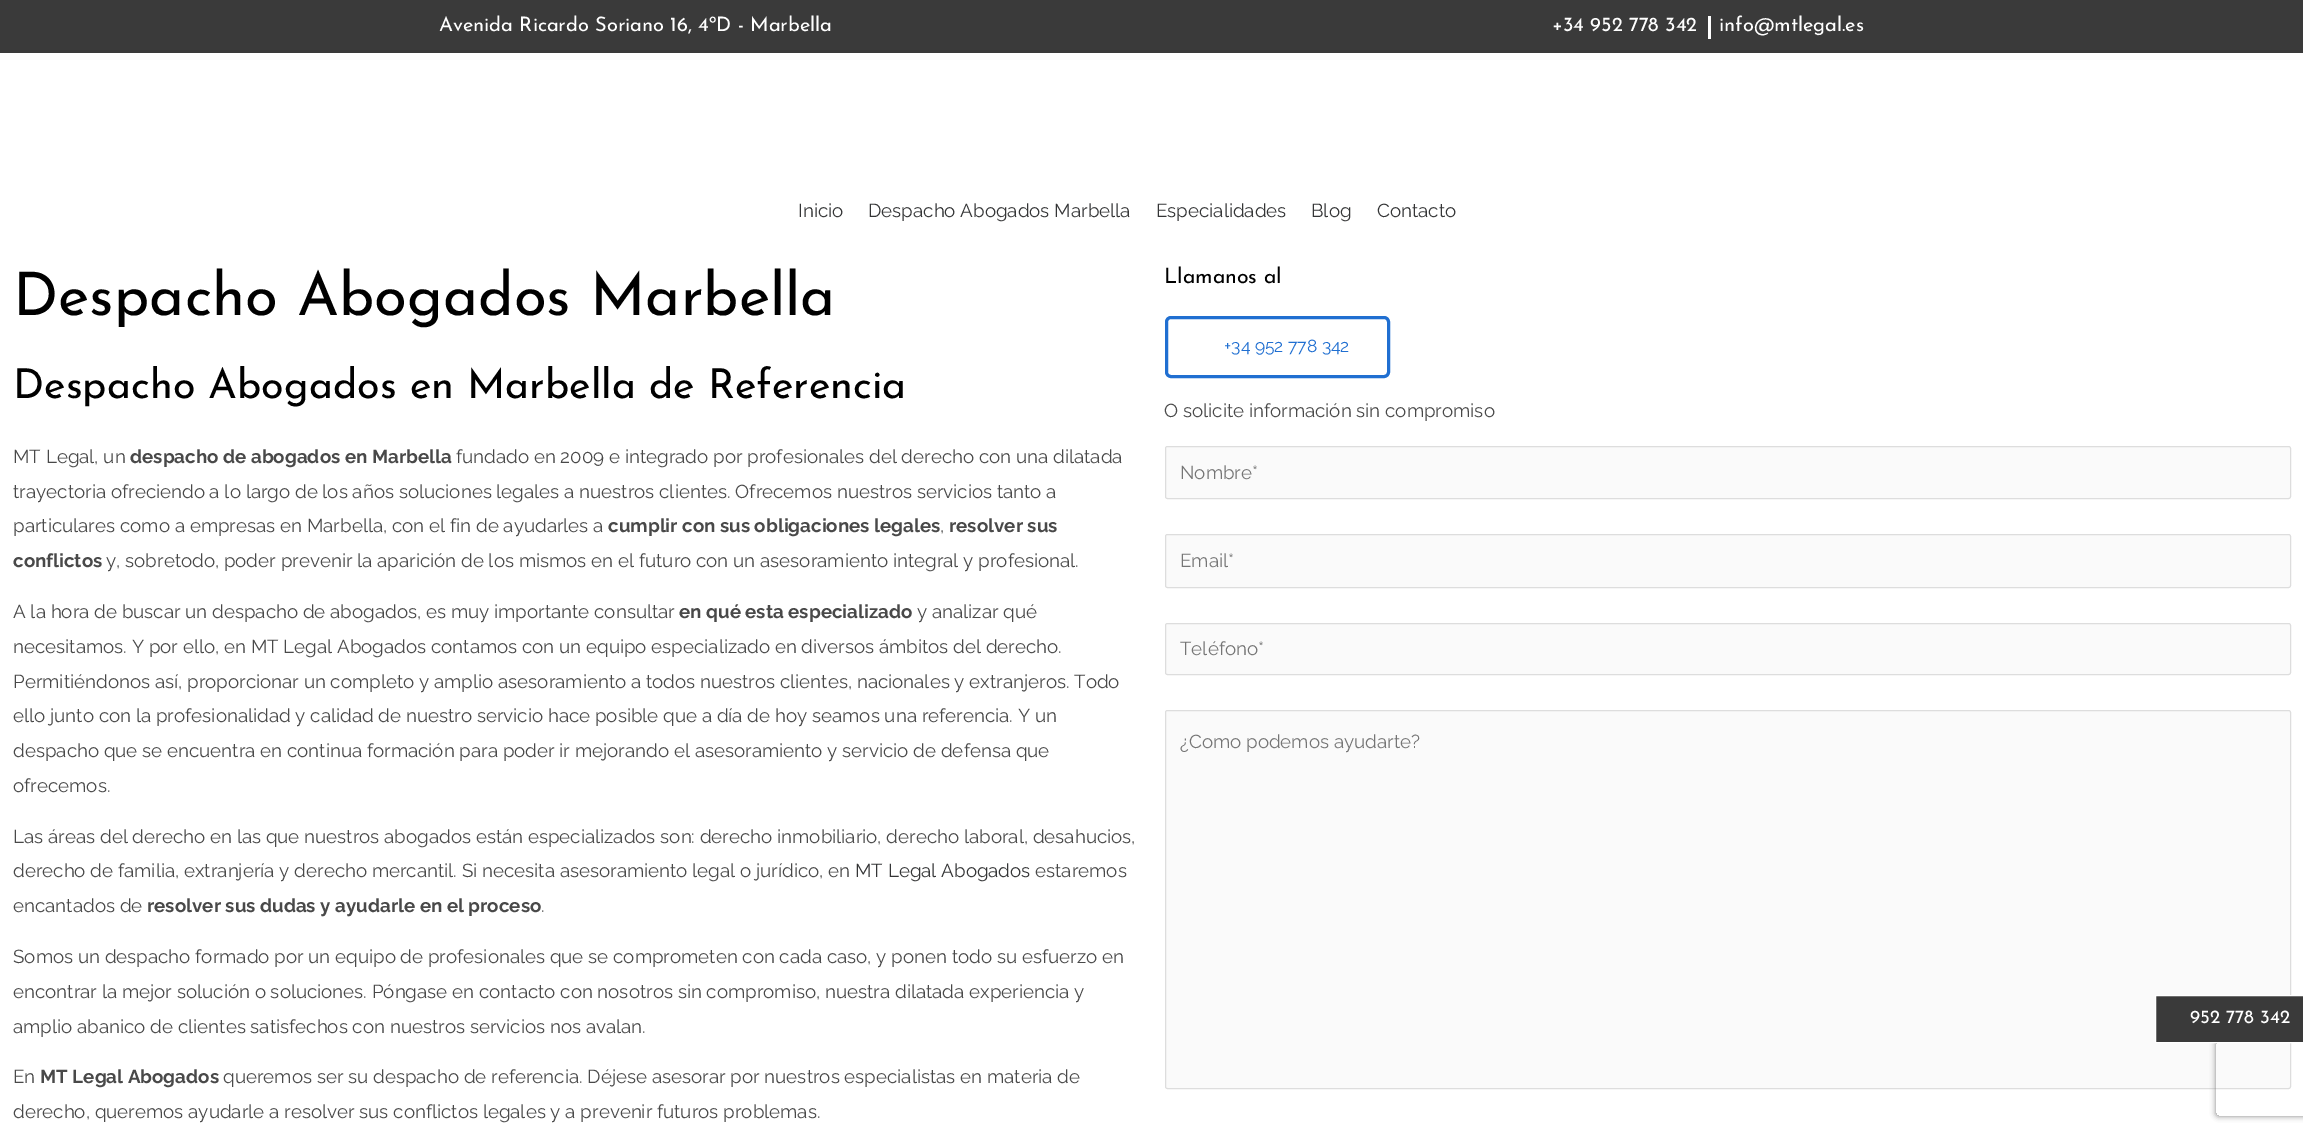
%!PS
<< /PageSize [2303 1133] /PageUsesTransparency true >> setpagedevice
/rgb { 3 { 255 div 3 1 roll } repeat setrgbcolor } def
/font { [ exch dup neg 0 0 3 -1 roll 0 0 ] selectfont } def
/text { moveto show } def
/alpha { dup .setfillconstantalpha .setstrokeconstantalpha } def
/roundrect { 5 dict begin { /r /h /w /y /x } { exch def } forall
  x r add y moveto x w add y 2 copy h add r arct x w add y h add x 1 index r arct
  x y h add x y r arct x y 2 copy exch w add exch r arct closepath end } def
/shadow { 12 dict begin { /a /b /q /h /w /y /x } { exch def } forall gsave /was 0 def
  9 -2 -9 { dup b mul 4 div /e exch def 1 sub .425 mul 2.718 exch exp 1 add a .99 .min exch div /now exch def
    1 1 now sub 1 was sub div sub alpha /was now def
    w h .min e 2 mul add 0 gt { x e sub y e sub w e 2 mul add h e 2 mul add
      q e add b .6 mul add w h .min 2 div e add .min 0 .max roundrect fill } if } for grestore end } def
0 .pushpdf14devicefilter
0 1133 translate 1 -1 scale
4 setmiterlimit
255 255 255 rgb
0 0 2303 1133 rectfill
58 58 58 rgb
0 0 2303 53 rectfill
255 255 255 rgb
1708 16 3 23 rectfill
32 111 209 rgb
3 setlinewidth
1166.5 317.5 222 59 4.5 roundrect stroke
250 250 250 rgb
1165.5 446.5 1125 52 2 roundrect gsave fill grestore
221 221 221 rgb
1 setlinewidth
stroke
250 250 250 rgb
1165.5 534.5 1125 53 2 roundrect gsave fill grestore
221 221 221 rgb
stroke
250 250 250 rgb
1165.5 623.5 1125 51 2 roundrect gsave fill grestore
221 221 221 rgb
stroke
250 250 250 rgb
1165.5 710.5 1125 378 2 roundrect gsave fill grestore
221 221 221 rgb
stroke
gsave
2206 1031 moveto 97 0 rlineto 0 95 rlineto -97 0 rlineto closepath 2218.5 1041 moveto 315 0 rlineto 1.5 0 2.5 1 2.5 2.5 rcurveto 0 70 rlineto 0 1.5 -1 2.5 -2.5 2.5 rcurveto -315 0 rlineto -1.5 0 -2.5 -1 -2.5 -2.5 rcurveto 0 -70 rlineto 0 -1.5 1 -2.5 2.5 -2.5 rcurveto closepath eoclip newpath
128 128 128 rgb
2216 1041 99 75 2.5 3 1 shadow
grestore
58 58 58 rgb
2155.5 995.5 moveto 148 0 rlineto 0 47 rlineto -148 0 rlineto closepath gsave fill grestore
255 255 255 rgb
stroke
/JosefinSans-Thin 20 font
(Avenida Ricardo Soriano 16, 4ºD - Marbella) 439 31 text
(+34 952 778 342) 1552 31 text
(info@mtlegal.es) 1719 31 text
/Raleway-Thin 18.75 font
52 53 54 rgb
(Inicio) 798 217 text
(Despacho Abogados Marbella) 868 217 text
(Especialidades) 1156 217 text
(Blog) 1311 217 text
(Contacto) 1377 217 text
/JosefinSans-Thin 60 font
0 0 0 rgb
(Despacho Abogados Marbella) 13 315 text
/JosefinSans-Thin 41.25 font
(Despacho Abogados en Marbella de Referencia) 13 398 text
/Raleway-Thin 18.75 font
73 73 73 rgb
(MT Legal, un) 13 463 text
/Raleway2-Thin 18.75 font
(despacho de abogados en Marbella) 130 463 text
/Raleway-Thin 18.75 font
(fundado en 2009 e integrado por profesionales del derecho con una dilatada) 456 463 text
(trayectoria ofreciendo a lo largo de los años soluciones legales a nuestros clientes. Ofrecemos nuestros servicios tanto a) 13 498 text
(particulares como a empresas en Marbella, con el fin de ayudarles a) 13 532 text
/Raleway2-Thin 18.75 font
(cumplir con sus obligaciones legales) 608 532 text
/Raleway-Thin 18.75 font
(,) 940 532 text
/Raleway2-Thin 18.75 font
(resolver sus) 949 532 text
(conflictos) 13 567 text
/Raleway-Thin 18.75 font
(y, sobretodo, poder prevenir la aparición de los mismos en el futuro con un asesoramiento integral y profesional.) 106 567 text
(A la hora de buscar un despacho de abogados, es muy importante consultar) 13 618 text
/Raleway2-Thin 18.75 font
(en qué esta especializado) 679 618 text
/Raleway-Thin 18.75 font
(y analizar qué) 917 618 text
(necesitamos. Y por ello, en MT Legal Abogados contamos con un equipo especializado en diversos ámbitos del derecho.) 13 653 text
(Permitiéndonos así, proporcionar un completo y amplio asesoramiento a todos nuestros clientes, nacionales y extranjeros. Todo) 13 688 text
(ello junto con la profesionalidad y calidad de nuestro servicio hace posible que a día de hoy seamos una referencia. Y un) 13 722 text
(despacho que se encuentra en continua formación para poder ir mejorando el asesoramiento y servicio de defensa que) 13 757 text
(ofrecemos.) 13 792 text
(Las áreas del derecho en las que nuestros abogados están especializados son: derecho inmobiliario, derecho laboral, desahucios,) 13 843 text
(derecho de familia, extranjería y derecho mercantil. Si necesita asesoramiento legal o jurídico, en) 13 877 text
52 53 54 rgb
(MT Legal Abogados) 855 877 text
73 73 73 rgb
(estaremos) 1035 877 text
(encantados de) 13 912 text
/Raleway2-Thin 18.75 font
(resolver sus dudas y ayudarle en el proceso) 147 912 text
/Raleway-Thin 18.75 font
(.) 541 912 text
(Somos un despacho formado por un equipo de profesionales que se comprometen con cada caso, y ponen todo su esfuerzo en) 13 963 text
(encontrar la mejor solución o soluciones. Póngase en contacto con nosotros sin compromiso, nuestra dilatada experiencia y) 13 998 text
(amplio abanico de clientes satisfechos con nuestros servicios nos avalan.) 13 1033 text
(En) 13 1083 text
/Raleway2-Thin 18.75 font
(MT Legal Abogados) 40 1083 text
/Raleway-Thin 18.75 font
(queremos ser su despacho de referencia. Déjese asesorar por nuestros especialistas en materia de) 223 1083 text
(derecho, queremos ayudarle a resolver sus conflictos legales y a prevenir futuros problemas.) 13 1118 text
/JosefinSans-Thin 21.25 font
0 0 0 rgb
(Llamanos al) 1164 283 text
/Raleway-Thin 17.5 font
32 111 209 rgb
(+34 952 778 342) 1224 352 text
/Raleway-Thin 18.75 font
73 73 73 rgb
(O solicite información sin compromiso) 1164 417 text
117 117 117 rgb
(Nombre*) 1180 479 text
(Email*) 1180 567 text
(Teléfono*) 1180 655 text
(¿Como podemos ayudarte?) 1180 748 text
/JosefinSans-Thin 18.75 font
255 255 255 rgb
(952 778 342) 2190 1023 text
.poppdf14devicefilter showpage
